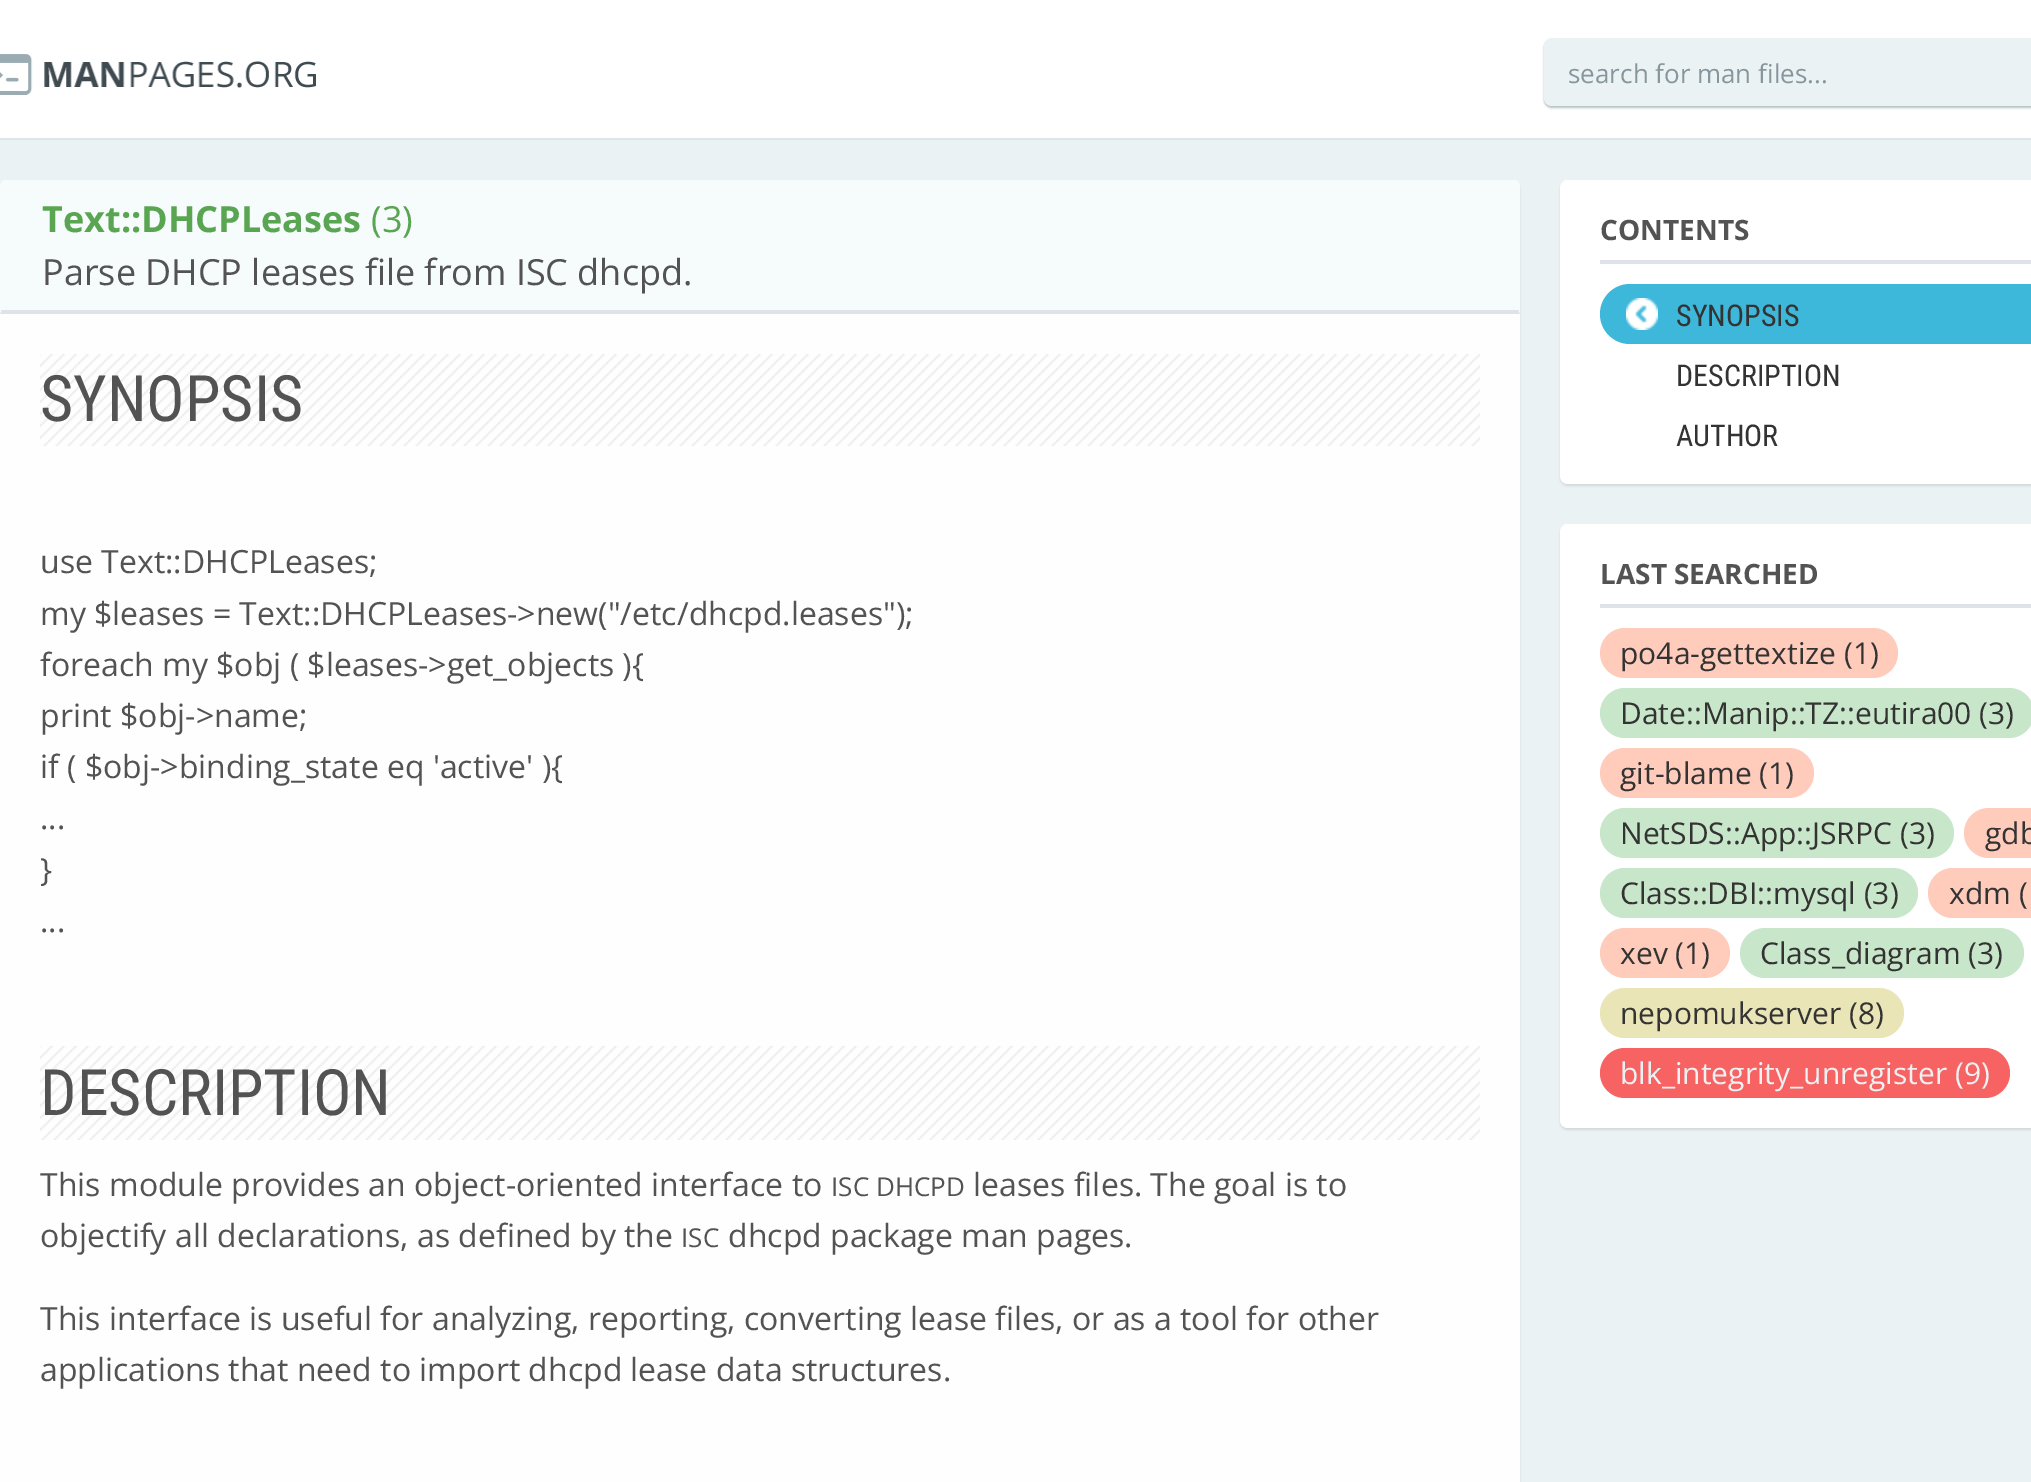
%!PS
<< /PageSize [2031 1482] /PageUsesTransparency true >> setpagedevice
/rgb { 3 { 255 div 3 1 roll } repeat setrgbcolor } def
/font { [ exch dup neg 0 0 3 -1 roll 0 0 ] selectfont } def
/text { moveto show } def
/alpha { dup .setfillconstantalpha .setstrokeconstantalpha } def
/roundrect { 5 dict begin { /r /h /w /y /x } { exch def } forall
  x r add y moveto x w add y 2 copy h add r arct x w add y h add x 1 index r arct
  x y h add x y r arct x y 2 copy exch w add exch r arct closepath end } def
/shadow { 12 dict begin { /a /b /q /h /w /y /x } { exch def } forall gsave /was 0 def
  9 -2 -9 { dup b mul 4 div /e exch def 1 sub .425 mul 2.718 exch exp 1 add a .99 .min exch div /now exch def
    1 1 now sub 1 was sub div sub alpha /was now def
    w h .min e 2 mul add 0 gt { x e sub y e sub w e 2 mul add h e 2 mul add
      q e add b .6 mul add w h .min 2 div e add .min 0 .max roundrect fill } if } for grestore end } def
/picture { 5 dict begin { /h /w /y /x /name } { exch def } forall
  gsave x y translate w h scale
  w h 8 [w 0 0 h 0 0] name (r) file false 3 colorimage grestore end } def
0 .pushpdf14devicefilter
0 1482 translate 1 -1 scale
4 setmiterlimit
234 242 244 rgb
0 0 2031 1482 rectfill
255 255 255 rgb
0 0 2031 138 rectfill
220 229 231 rgb
0 138 2031 2 rectfill
(img_01.rgb) 0 54 316 41 picture
6 47 55 rgb
1544 40 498 68 8 1 0.3 shadow
234 242 244 rgb
1544 38 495 68 8 roundrect fill
0 0 0 rgb
0 182 1520 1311 8 1 0.1 shadow
254 254 254 rgb
8 180 moveto 1504 0 rlineto 4.5 0 8 3.5 8 8 rcurveto 0 1294 rlineto -1520 0 rlineto 0 -1294 rlineto 0 -4.5 3.5 -8 8 -8 rcurveto closepath fill
246 251 252 rgb
6 180 moveto 1508 0 rlineto 3.5 0 6 2.5 6 6 rcurveto 0 128 rlineto -1520 0 rlineto 0 -128 rlineto 0 -3.5 2.5 -6 6 -6 rcurveto closepath fill
223 227 233 rgb
1520 314 moveto -2 -4 rlineto -1516 0 rlineto -2 4 rlineto closepath fill
(img_02.rgb) 40 354 1440 92 picture
(img_03.rgb) 40 1046 1440 94 picture
0 0 0 rgb
1560 182 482 304 8 1 0.1 shadow
255 255 255 rgb
1568 180 moveto 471 0 rlineto 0 304 rlineto -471 0 rlineto -4.5 0 -8 -3.5 -8 -8 rcurveto 0 -288 rlineto 0 -4.5 3.5 -8 8 -8 rcurveto closepath fill
223 227 233 rgb
1600 260 431 4 rectfill
61 184 219 rgb
1600 284 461 60 30 roundrect fill
(img_04.rgb) 1626 298 32 32 picture
0 0 0 rgb
1560 526 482 604 8 1 0.1 shadow
255 255 255 rgb
1568 524 moveto 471 0 rlineto 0 604 rlineto -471 0 rlineto -4.5 0 -8 -3.5 -8 -8 rcurveto 0 -588 rlineto 0 -4.5 3.5 -8 8 -8 rcurveto closepath fill
223 227 233 rgb
1600 604 431 4 rectfill
255 204 188 rgb
1600 628 298 50 25 roundrect fill
200 230 201 rgb
1600 688 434 50 25 roundrect fill
255 204 188 rgb
1600 748 214 50 25 roundrect fill
200 230 201 rgb
1600 808 354 50 25 roundrect fill
255 204 188 rgb
1964 808 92 50 25 roundrect fill
200 230 201 rgb
1600 868 318 50 25 roundrect fill
255 204 188 rgb
1928 868 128 50 25 roundrect fill
1600 928 130 50 25 roundrect fill
200 230 201 rgb
1740 928 284 50 25 roundrect fill
234 229 183 rgb
1600 988 304 50 25 roundrect fill
247 99 99 rgb
1600 1048 410 50 25 roundrect fill
/OpenSans-Regular 26 font
134 150 157 rgb
(search for man files...) 1568 83 text
/OpenSans-Bold 36 font
89 165 82 rgb
(Text::DHCPLeases) 42 232 text
/OpenSans-Regular 36 font
(\(3\)) 371 232 text
83 83 83 rgb
(Parse DHCP leases file from ISC dhcpd.) 42 285 text
/RobotoCondensed-Regular 64 font
(SYNOPSIS) 40 421 text
/OpenSans-Regular 32 font
(use Text::DHCPLeases;) 40 573 text
(my $leases = Text::DHCPLeases->new\("/etc/dhcpd.leases"\);) 40 625 text
(foreach my $obj \( $leases->get_objects \){) 40 676 text
(print $obj->name;) 40 727 text
(if \( $obj->binding_state eq 'active' \){) 40 778 text
(...) 40 829 text
(}) 40 881 text
(...) 40 932 text
/RobotoCondensed-Regular 64 font
(DESCRIPTION) 40 1115 text
/OpenSans-Regular 32 font
(This module provides an object-oriented interface to) 40 1196 text
/OpenSans-Regular 26 font
(ISC DHCPD) 831 1196 text
/OpenSans-Regular 32 font
(leases files. The goal is to) 973 1196 text
(objectify all declarations, as defined by the) 40 1247 text
/OpenSans-Regular 26 font
(ISC) 681 1247 text
/OpenSans-Regular 32 font
(dhcpd package man pages.) 728 1247 text
(This interface is useful for analyzing, reporting, converting lease files, or as a tool for other) 40 1330 text
(applications that need to import dhcpd lease data structures.) 40 1381 text
/OpenSans-Bold 28 font
(CONTENTS) 1600 240 text
/RobotoCondensed-Regular 30 font
51 51 51 rgb
(SYNOPSIS) 1676 326 text
(DESCRIPTION) 1676 386 text
(AUTHOR) 1676 446 text
/OpenSans-Bold 28 font
83 83 83 rgb
(LAST SEARCHED) 1600 584 text
/OpenSans-Regular 30 font
51 51 51 rgb
(po4a-gettextize \(1\)) 1620 664 text
(Date::Manip::TZ::eutira00 \(3\)) 1620 724 text
(git-blame \(1\)) 1620 784 text
(NetSDS::App::JSRPC \(3\)) 1620 844 text
(gdb) 1985 844 text
(Class::DBI::mysql \(3\)) 1620 904 text
(xdm \() 1949 904 text
(xev \(1\)) 1620 964 text
(Class_diagram \(3\)) 1760 964 text
(nepomukserver \(8\)) 1620 1024 text
234 242 244 rgb
(blk_integrity_unregister \(9\)) 1620 1084 text
.poppdf14devicefilter showpage
